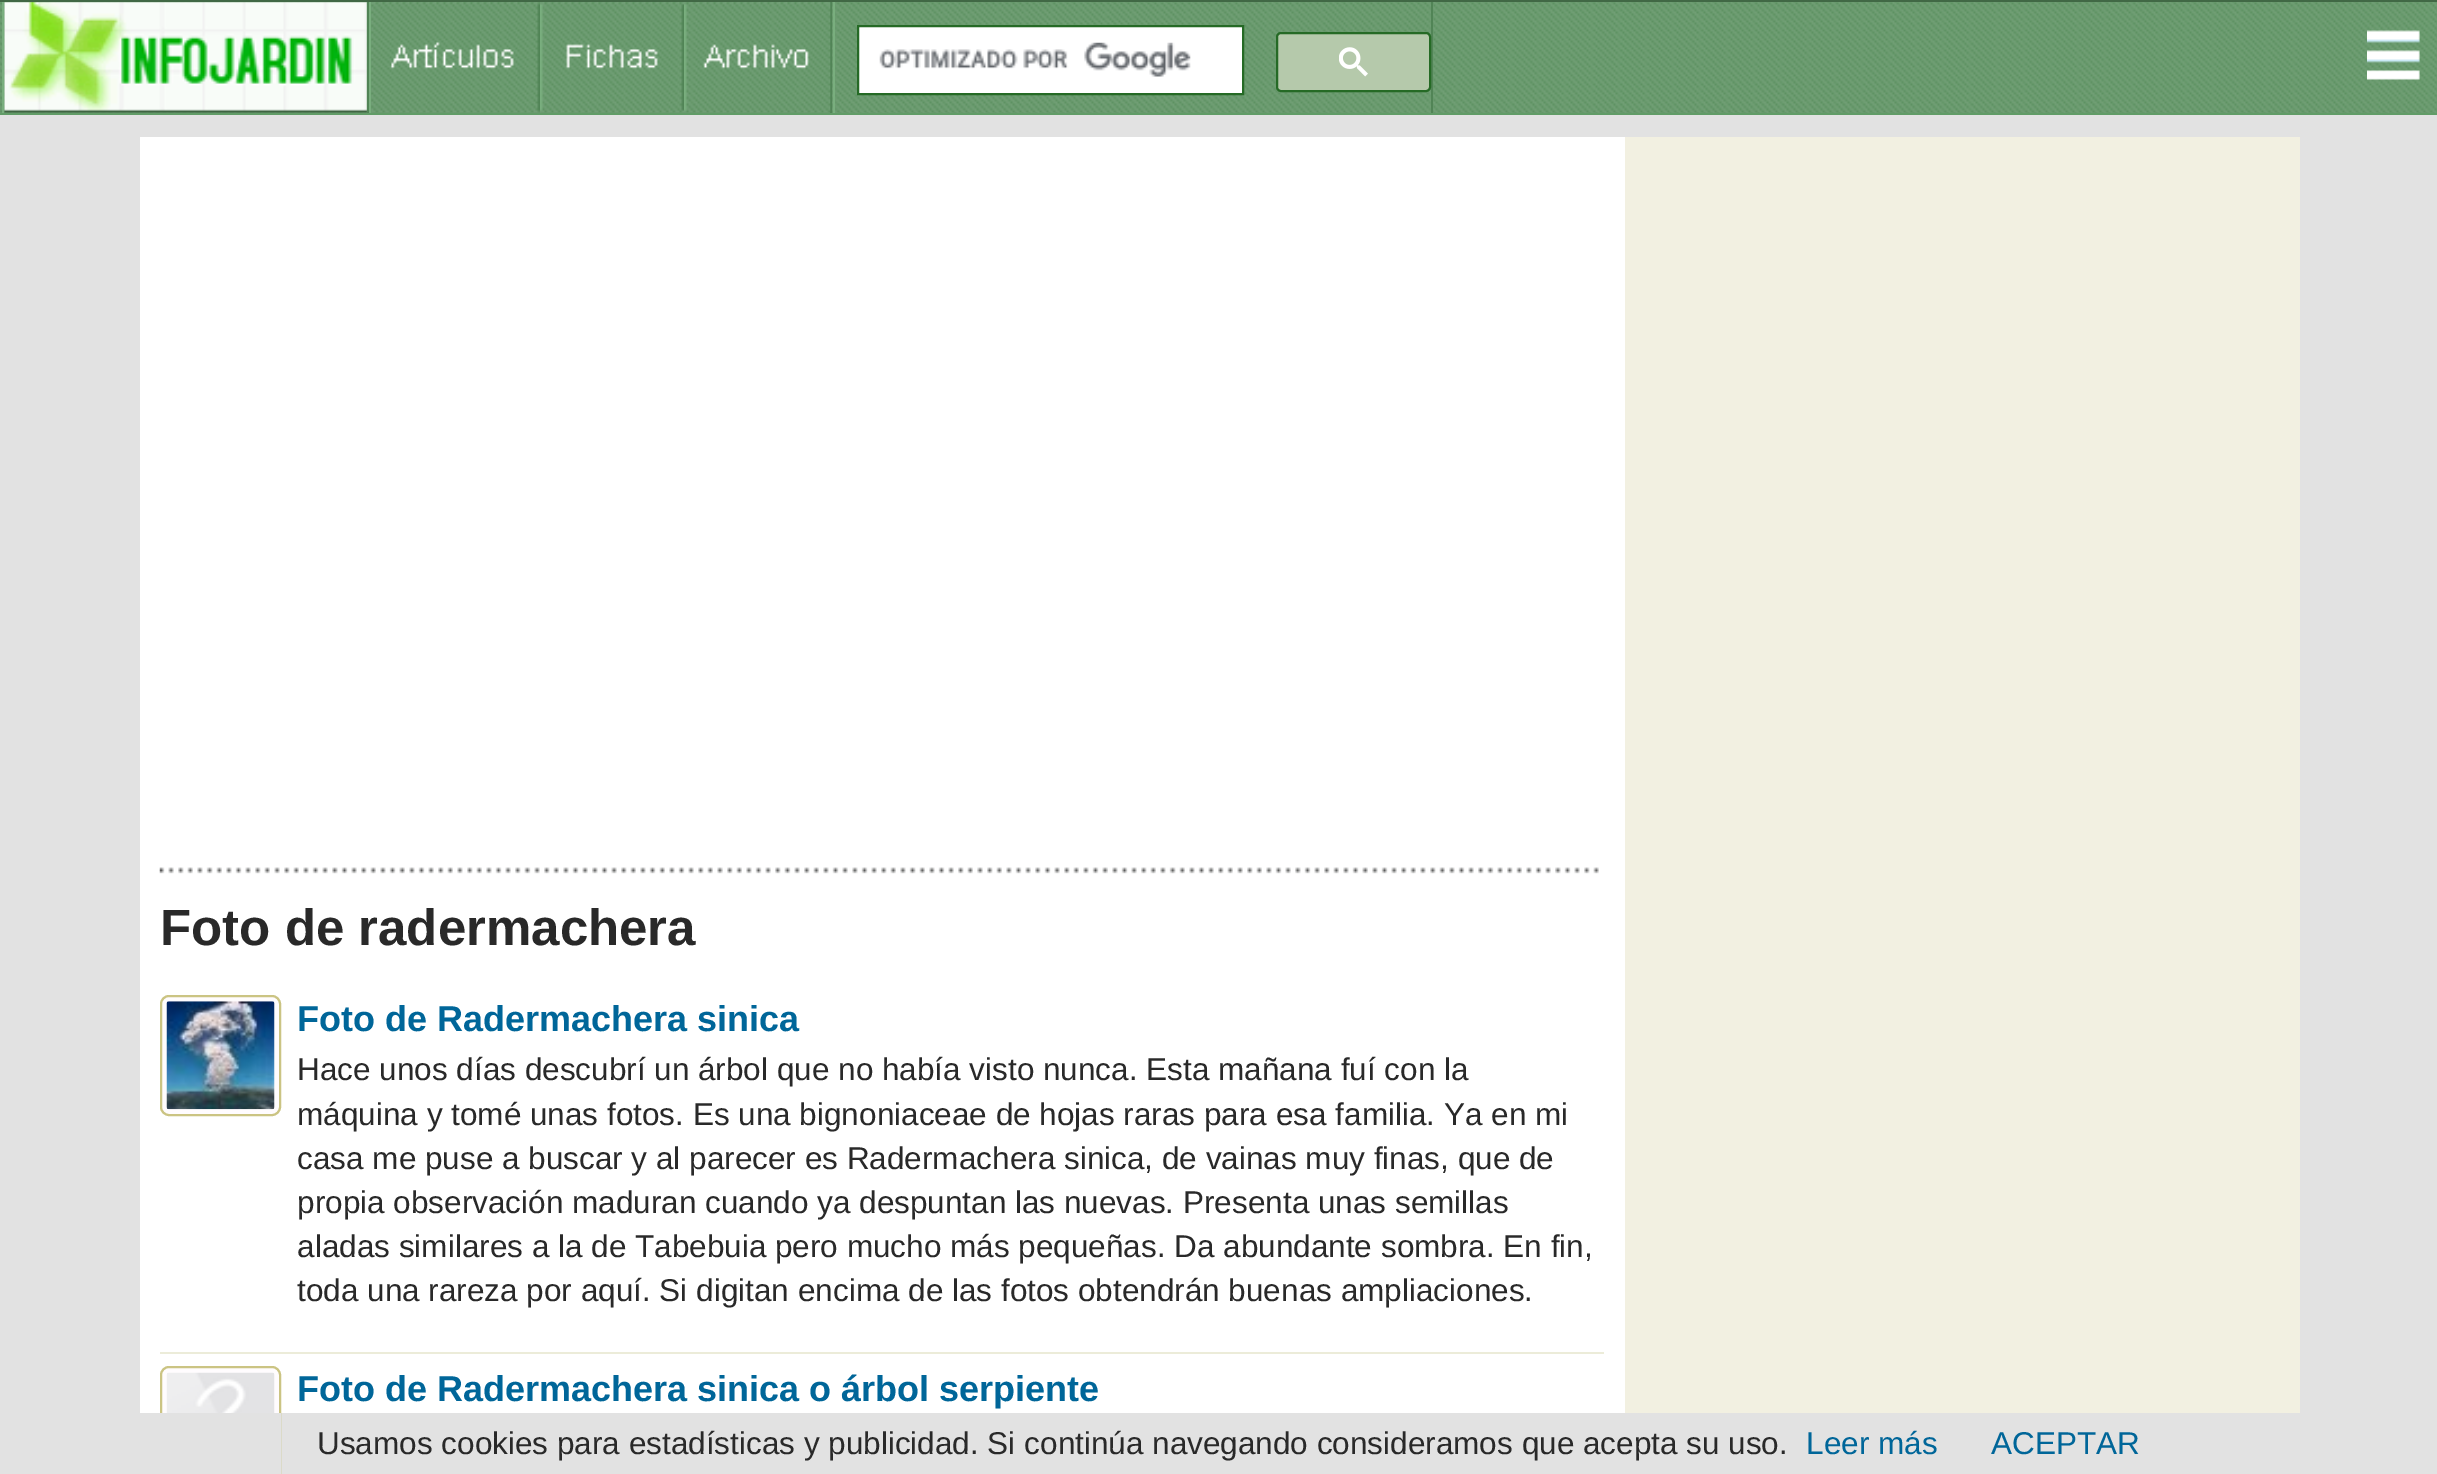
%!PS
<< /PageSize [2437 1474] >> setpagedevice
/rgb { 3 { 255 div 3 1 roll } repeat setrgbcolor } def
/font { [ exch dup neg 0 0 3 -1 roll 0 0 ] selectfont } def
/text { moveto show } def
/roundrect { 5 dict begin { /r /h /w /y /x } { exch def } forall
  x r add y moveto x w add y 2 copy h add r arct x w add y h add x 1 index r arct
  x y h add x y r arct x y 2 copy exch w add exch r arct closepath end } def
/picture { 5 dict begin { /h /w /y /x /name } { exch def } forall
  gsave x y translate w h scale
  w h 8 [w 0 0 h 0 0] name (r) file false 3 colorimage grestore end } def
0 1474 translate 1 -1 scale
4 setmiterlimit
226 226 226 rgb
0 0 2437 1474 rectfill
85 140 90 rgb
0 2 2437 111 rectfill
(img_01.rgb) 0 2 2437 111 picture
65 104 69 rgb
0 0 2437 2 rectfill
97 156 103 rgb
0 113 2437 2 rectfill
81 132 86 rgb
367 2 2 111 rectfill
121 174 126 rgb
2 2 2 111 rectfill
(img_02.rgb) 4 2 363 111 picture
81 132 86 rgb
830 2 2 111 rectfill
121 174 126 rgb
369 2 2 111 rectfill
(img_03.rgb) 371 2 169 111 picture
(img_04.rgb) 540 2 144 111 picture
(img_05.rgb) 684 2 147 111 picture
81 132 86 rgb
1431 2 2 111 rectfill
121 174 126 rgb
833 2 2 111 rectfill
255 255 255 rgb
858 26 moveto 385 0 rlineto 0 68 rlineto -385 0 rlineto closepath gsave fill grestore
37 106 37 rgb
2 setlinewidth
stroke
(img_06.rgb) 879 42 312 35 picture
181 201 171 rgb
1277 33 153 58 4 roundrect gsave fill grestore
37 106 37 rgb
stroke
(img_07.rgb) 1339 47 29 30 picture
(img_08.rgb) 2367 30 53 50 picture
242 240 225 rgb
1625 137 675 1276 rectfill
255 255 255 rgb
140 137 1485 1276 rectfill
(img_09.rgb) 159 867 1440 7 picture
236 236 217 rgb
160 1352 1444 2 rectfill
255 252 254 rgb
161 996 119 119 8 roundrect gsave fill grestore
203 196 131 rgb
stroke
(img_10.rgb) 166 1001 109 109 picture
255 252 254 rgb
161 1367 119 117 8 roundrect gsave fill grestore
203 196 131 rgb
stroke
(img_11.rgb) 166 1372 109 41 picture
226 226 226 rgb
160 1413 121 61 rectfill
/LiberationSans-Bold 51 font
41 41 41 rgb
(Foto de radermachera) 160 945 text
/LiberationSans-Bold 36 font
0 102 153 rgb
(Foto de Radermachera sinica) 297 1031 text
/LiberationSans-Regular 31.5 font
41 41 41 rgb
(Hace unos días descubrí un árbol que no había visto nunca. Esta mañana fuí con la) 297 1080 text
(máquina y tomé unas fotos. Es una bignoniaceae de hojas raras para esa familia. Ya en mi) 297 1125 text
(casa me puse a buscar y al parecer es Radermachera sinica, de vainas muy finas, que de) 297 1169 text
(propia observación maduran cuando ya despuntan las nuevas. Presenta unas semillas) 297 1213 text
(aladas similares a la de Tabebuia pero mucho más pequeñas. Da abundante sombra. En fin,) 297 1257 text
(toda una rareza por aquí. Si digitan encima de las fotos obtendrán buenas ampliaciones.) 297 1301 text
/LiberationSans-Bold 36 font
0 102 153 rgb
(Foto de Radermachera sinica o árbol serpiente) 297 1401 text
/LiberationSans-Regular 31.5 font
41 41 41 rgb
(Usamos cookies para estadísticas y publicidad. Si continúa navegando consideramos que acepta su uso.) 317 1454 text
0 102 153 rgb
(Leer más) 1806 1454 text
(ACEPTAR) 1991 1454 text
showpage
